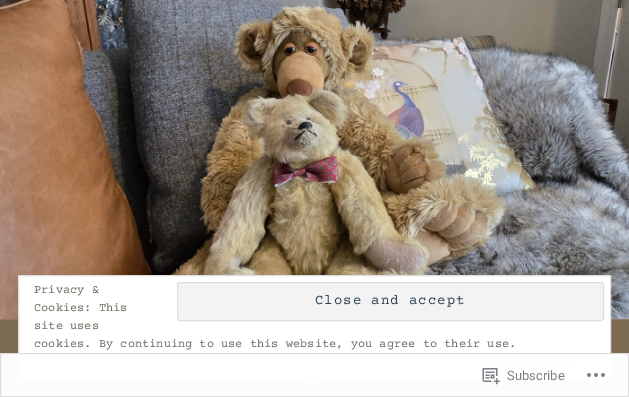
%!PS
<< /PageSize [629 397] /PageUsesTransparency true >> setpagedevice
/rgb { 3 { 255 div 3 1 roll } repeat setrgbcolor } def
/font { [ exch dup neg 0 0 3 -1 roll 0 0 ] selectfont } def
/text { moveto show } def
/alpha { dup .setfillconstantalpha .setstrokeconstantalpha } def
/roundrect { 5 dict begin { /r /h /w /y /x } { exch def } forall
  x r add y moveto x w add y 2 copy h add r arct x w add y h add x 1 index r arct
  x y h add x y r arct x y 2 copy exch w add exch r arct closepath end } def
/picture { 5 dict begin { /h /w /y /x /name } { exch def } forall
  gsave x y translate w h scale
  w h 8 [w 0 0 h 0 0] name (r) file false 3 colorimage grestore end } def
0 .pushpdf14devicefilter
0 397 translate 1 -1 scale
4 setmiterlimit
255 255 255 rgb
0 0 629 397 rectfill
(img_01.rgb) 0 0 629 319 picture
125 106 83 rgb
0 320 629 77 rectfill
145 121 96 rgb
0 319 629 1 rectfill
(img_02.rgb) 305 381 14 4 picture
255 255 255 rgb
18.5 275.5 moveto 592 0 rlineto 0 103 rlineto -592 0 rlineto closepath gsave fill grestore
222 222 222 rgb
stroke
243 243 243 rgb
177.5 282.5 426 38 2.5 roundrect gsave fill grestore
222 222 222 rgb
stroke
114 107 96 rgb
480 366 94 1 rectfill
0.98 alpha
255 255 255 rgb
0 353 629 44 rectfill
220 220 222 rgb
0.5 353.5 628 43 rectstroke
1 alpha
(img_03.rgb) 482 368 18 17 picture
(img_04.rgb) 587 373 18 4 picture
/CourierPrime-Regular 12 font
114 107 96 rgb
(Privacy &) 34 293 text
(Cookies: This) 34 311 text
/CourierPrime-Regular 14 font
46 68 83 rgb
315 304 moveto 1 0 (Close and accept) ashow
/CourierPrime-Regular 12 font
114 107 96 rgb
(site uses) 34 329 text
(cookies. By continuing to use this website, you agree to their use.) 34 347 text
/Roboto-Regular 13 font
123 127 132 rgb
(Subscribe) 507 380 text
.poppdf14devicefilter showpage
